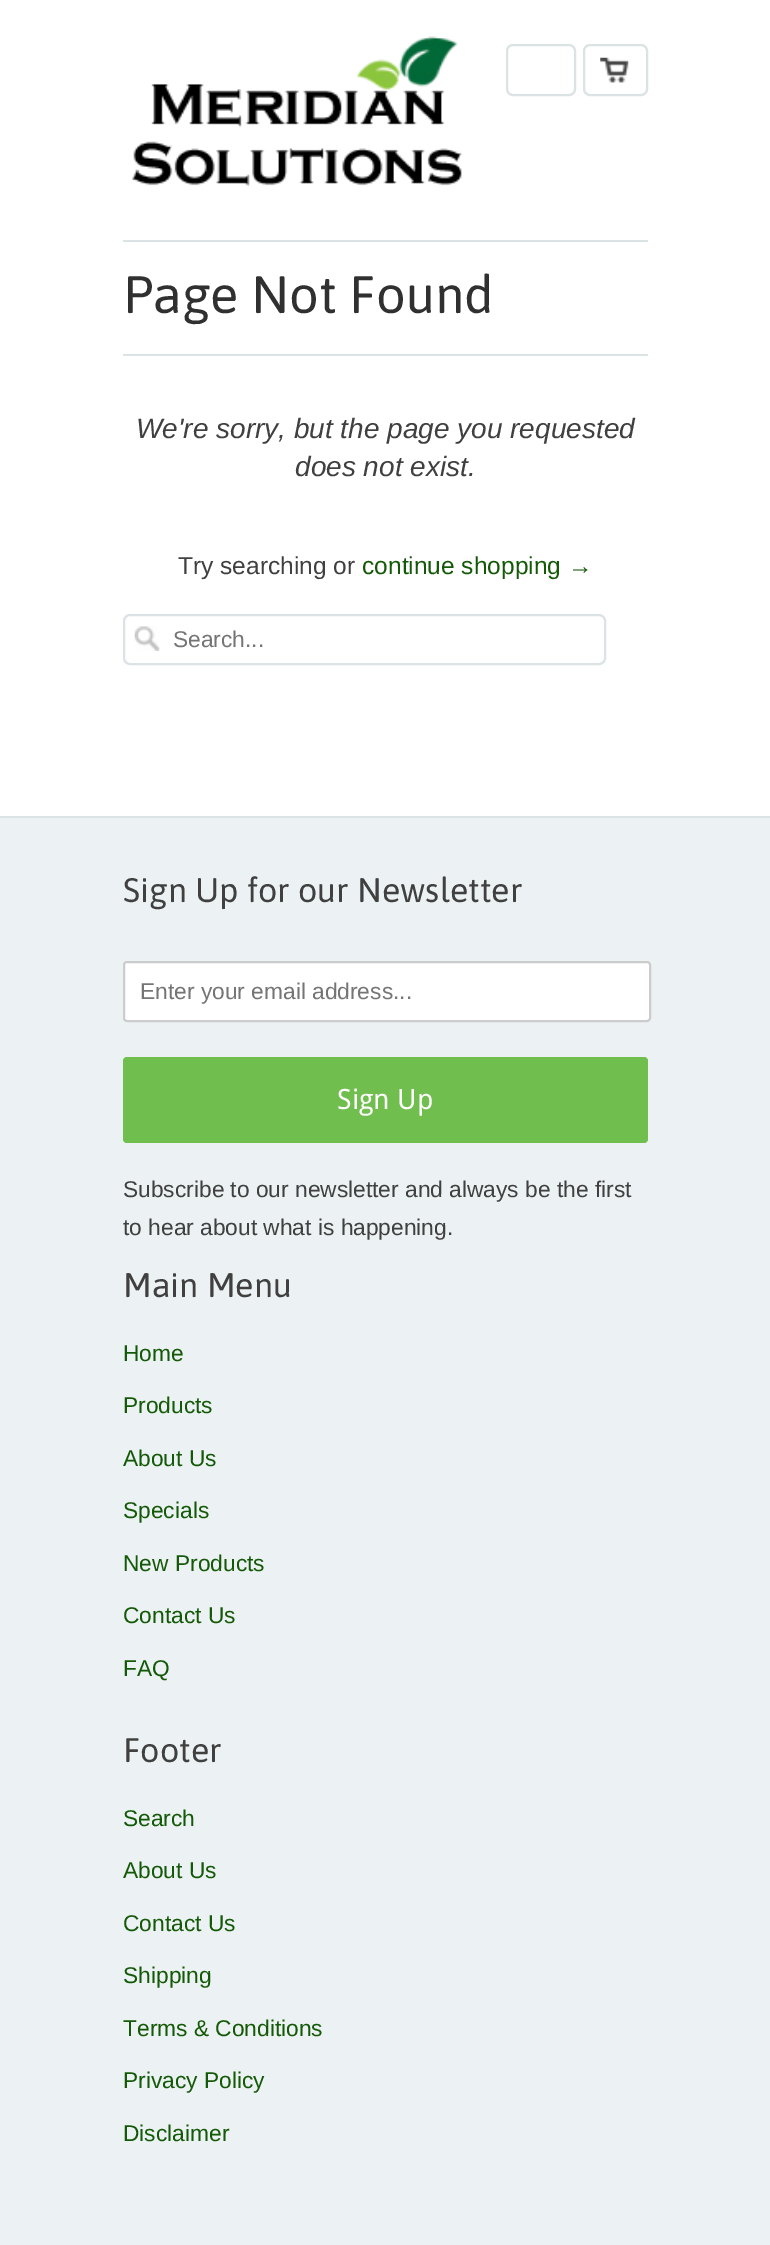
%!PS
<< /PageSize [770 2245] >> setpagedevice
/rgb { 3 { 255 div 3 1 roll } repeat setrgbcolor } def
/font { [ exch dup neg 0 0 3 -1 roll 0 0 ] selectfont } def
/text { moveto show } def
/roundrect { 5 dict begin { /r /h /w /y /x } { exch def } forall
  x r add y moveto x w add y 2 copy h add r arct x w add y h add x 1 index r arct
  x y h add x y r arct x y 2 copy exch w add exch r arct closepath end } def
/picture { 5 dict begin { /h /w /y /x /name } { exch def } forall
  gsave x y translate w h scale
  w h 8 [w 0 0 h 0 0] name (r) file false 3 colorimage grestore end } def
0 2245 translate 1 -1 scale
4 setmiterlimit
255 255 255 rgb
0 0 770 2245 rectfill
219 227 229 rgb
123 240 525 2 rectfill
(img_01.rgb) 132 36 330 151 picture
2 setlinewidth
507 45 68 50 6 roundrect stroke
(img_02.rgb) 600 57 29 26 picture
584 45 63 50 6 roundrect stroke
123 354 525 2 rectfill
(img_03.rgb) 134 626 26 25 picture
124 615 481 49 6 roundrect stroke
236 242 243 rgb
0 818 770 1427 rectfill
219 227 229 rgb
0 816 770 2 rectfill
255 255 255 rgb
124 962 526 59 3 roundrect gsave fill grestore
204 204 204 rgb
stroke
112 190 77 rgb
123 1057 525 86 4 roundrect fill
/Asap-Regular 52.5 font
48 48 48 rgb
(Page Not Found) 123 313 text
/LiberationSans-Italic 28 font
64 64 64 rgb
(We're sorry, but the page you requested) 136 438 text
(does not exist.) 295 476 text
/LiberationSans-Regular 24.5 font
(Try searching or) 178 574 text
20 89 8 rgb
(continue shopping →) 362 574 text
/LiberationSans-Regular 22.75 font
117 117 117 rgb
(Search...) 173 647 text
/Asap-Regular 34.1 font
64 64 64 rgb
(Sign Up for our Newsletter) 123 902 text
/LiberationSans-Regular 22.75 font
117 117 117 rgb
(Enter your email address...) 140 999 text
/DroidSans-Regular 28 font
255 255 255 rgb
(Sign Up) 337 1109 text
/LiberationSans-Regular 22.75 font
64 64 64 rgb
(Subscribe to our newsletter and always be the first) 123 1197 text
(to hear about what is happening.) 123 1235 text
/Asap-Regular 34.1 font
(Main Menu) 123 1297 text
/LiberationSans-Regular 22.75 font
20 89 8 rgb
(Home) 123 1361 text
(Products) 123 1413 text
(About Us) 123 1466 text
(Specials) 123 1518 text
(New Products) 123 1571 text
(Contact Us) 123 1623 text
(FAQ) 123 1676 text
/Asap-Regular 34.1 font
64 64 64 rgb
(Footer) 123 1762 text
/LiberationSans-Regular 22.75 font
20 89 8 rgb
(Search) 123 1826 text
(About Us) 123 1878 text
(Contact Us) 123 1931 text
(Shipping) 123 1983 text
(Terms & Conditions) 123 2036 text
(Privacy Policy) 123 2088 text
(Disclaimer) 123 2141 text
showpage
